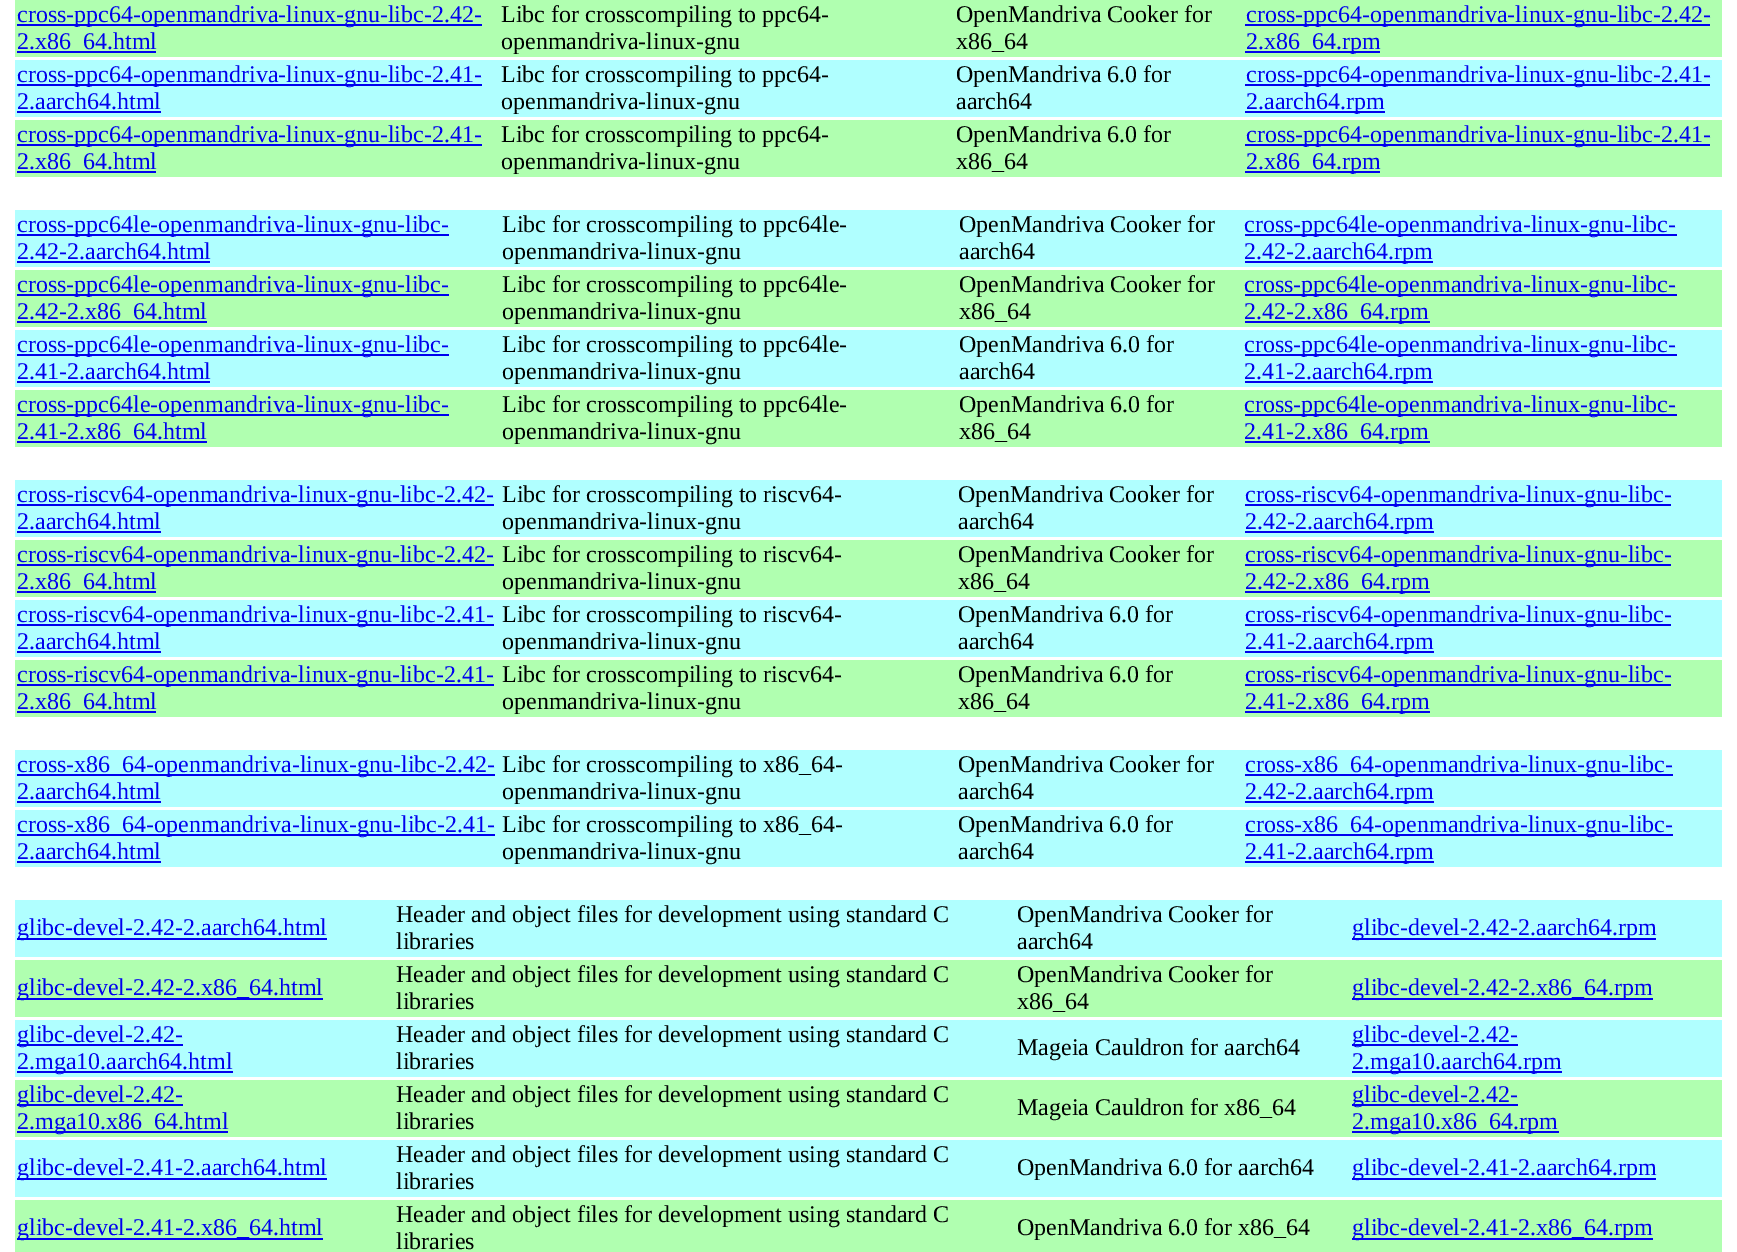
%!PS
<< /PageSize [1737 1252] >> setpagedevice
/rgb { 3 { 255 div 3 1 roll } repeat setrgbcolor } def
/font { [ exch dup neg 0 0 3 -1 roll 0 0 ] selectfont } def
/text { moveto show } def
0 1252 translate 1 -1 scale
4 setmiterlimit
255 255 255 rgb
0 0 1737 1252 rectfill
176 255 176 rgb
15 0 1707 57 rectfill
0 0 238 rgb
17 24 465 2 rectfill
17 51 139 2 rectfill
1245 24 465 2 rectfill
1245 51 135 2 rectfill
176 255 255 rgb
15 60 1707 57 rectfill
0 0 238 rgb
17 84 465 2 rectfill
17 111 144 2 rectfill
1245 84 465 2 rectfill
1245 111 140 2 rectfill
176 255 176 rgb
15 120 1707 57 rectfill
0 0 238 rgb
17 144 465 2 rectfill
17 171 139 2 rectfill
1245 144 465 2 rectfill
1245 171 135 2 rectfill
176 255 255 rgb
15 210 1707 57 rectfill
0 0 238 rgb
17 234 432 2 rectfill
17 261 193 2 rectfill
1245 234 432 2 rectfill
1245 261 188 2 rectfill
176 255 176 rgb
15 270 1707 57 rectfill
0 0 238 rgb
17 294 432 2 rectfill
17 321 190 2 rectfill
1245 294 432 2 rectfill
1245 321 185 2 rectfill
176 255 255 rgb
15 330 1707 57 rectfill
0 0 238 rgb
17 354 432 2 rectfill
17 381 193 2 rectfill
1245 354 432 2 rectfill
1245 381 188 2 rectfill
176 255 176 rgb
15 390 1707 57 rectfill
0 0 238 rgb
17 414 432 2 rectfill
17 441 190 2 rectfill
1245 414 432 2 rectfill
1245 441 185 2 rectfill
176 255 255 rgb
15 480 1707 57 rectfill
0 0 238 rgb
17 504 477 2 rectfill
17 531 144 2 rectfill
1245 504 426 2 rectfill
1245 531 189 2 rectfill
176 255 176 rgb
15 540 1707 57 rectfill
0 0 238 rgb
17 564 477 2 rectfill
17 591 139 2 rectfill
1245 564 426 2 rectfill
1245 591 185 2 rectfill
176 255 255 rgb
15 600 1707 57 rectfill
0 0 238 rgb
17 624 477 2 rectfill
17 651 144 2 rectfill
1245 624 426 2 rectfill
1245 651 189 2 rectfill
176 255 176 rgb
15 660 1707 57 rectfill
0 0 238 rgb
17 684 477 2 rectfill
17 711 139 2 rectfill
1245 684 426 2 rectfill
1245 711 185 2 rectfill
176 255 255 rgb
15 750 1707 57 rectfill
0 0 238 rgb
17 774 478 2 rectfill
17 801 144 2 rectfill
1245 774 428 2 rectfill
1245 801 189 2 rectfill
176 255 255 rgb
15 810 1707 57 rectfill
0 0 238 rgb
17 834 478 2 rectfill
17 861 144 2 rectfill
1245 834 428 2 rectfill
1245 861 189 2 rectfill
176 255 255 rgb
15 900 1707 57 rectfill
0 0 238 rgb
17 938 310 2 rectfill
1352 938 304 2 rectfill
176 255 176 rgb
15 960 1707 57 rectfill
0 0 238 rgb
17 998 306 2 rectfill
1352 998 301 2 rectfill
176 255 255 rgb
15 1020 1707 57 rectfill
0 0 238 rgb
17 1044 166 2 rectfill
17 1071 216 2 rectfill
1352 1044 166 2 rectfill
1352 1071 210 2 rectfill
176 255 176 rgb
15 1080 1707 57 rectfill
0 0 238 rgb
17 1104 166 2 rectfill
17 1131 211 2 rectfill
1352 1104 166 2 rectfill
1352 1131 207 2 rectfill
176 255 255 rgb
15 1140 1707 57 rectfill
0 0 238 rgb
17 1178 310 2 rectfill
1352 1178 304 2 rectfill
176 255 176 rgb
15 1200 1707 52 rectfill
0 0 238 rgb
17 1238 306 2 rectfill
1352 1238 301 2 rectfill
/LiberationSerif-Regular 24 font
(cross-ppc64-openmandriva-linux-gnu-libc-2.42-) 17 22 text
(2.x86_64.html) 17 49 text
0 0 0 rgb
(Libc for crosscompiling to ppc64-) 501 22 text
(openmandriva-linux-gnu) 501 49 text
(OpenMandriva Cooker for) 956 22 text
(x86_64) 956 49 text
0 0 238 rgb
(cross-ppc64-openmandriva-linux-gnu-libc-2.42-) 1246 22 text
(2.x86_64.rpm) 1246 49 text
(cross-ppc64-openmandriva-linux-gnu-libc-2.41-) 17 82 text
(2.aarch64.html) 17 109 text
0 0 0 rgb
(Libc for crosscompiling to ppc64-) 501 82 text
(openmandriva-linux-gnu) 501 109 text
(OpenMandriva 6.0 for) 956 82 text
(aarch64) 956 109 text
0 0 238 rgb
(cross-ppc64-openmandriva-linux-gnu-libc-2.41-) 1246 82 text
(2.aarch64.rpm) 1246 109 text
(cross-ppc64-openmandriva-linux-gnu-libc-2.41-) 17 142 text
(2.x86_64.html) 17 169 text
0 0 0 rgb
(Libc for crosscompiling to ppc64-) 501 142 text
(openmandriva-linux-gnu) 501 169 text
(OpenMandriva 6.0 for) 956 142 text
(x86_64) 956 169 text
0 0 238 rgb
(cross-ppc64-openmandriva-linux-gnu-libc-2.41-) 1246 142 text
(2.x86_64.rpm) 1246 169 text
(cross-ppc64le-openmandriva-linux-gnu-libc-) 17 232 text
(2.42-2.aarch64.html) 17 259 text
0 0 0 rgb
(Libc for crosscompiling to ppc64le-) 502 232 text
(openmandriva-linux-gnu) 502 259 text
(OpenMandriva Cooker for) 959 232 text
(aarch64) 959 259 text
0 0 238 rgb
(cross-ppc64le-openmandriva-linux-gnu-libc-) 1244 232 text
(2.42-2.aarch64.rpm) 1244 259 text
(cross-ppc64le-openmandriva-linux-gnu-libc-) 17 292 text
(2.42-2.x86_64.html) 17 319 text
0 0 0 rgb
(Libc for crosscompiling to ppc64le-) 502 292 text
(openmandriva-linux-gnu) 502 319 text
(OpenMandriva Cooker for) 959 292 text
(x86_64) 959 319 text
0 0 238 rgb
(cross-ppc64le-openmandriva-linux-gnu-libc-) 1244 292 text
(2.42-2.x86_64.rpm) 1244 319 text
(cross-ppc64le-openmandriva-linux-gnu-libc-) 17 352 text
(2.41-2.aarch64.html) 17 379 text
0 0 0 rgb
(Libc for crosscompiling to ppc64le-) 502 352 text
(openmandriva-linux-gnu) 502 379 text
(OpenMandriva 6.0 for) 959 352 text
(aarch64) 959 379 text
0 0 238 rgb
(cross-ppc64le-openmandriva-linux-gnu-libc-) 1244 352 text
(2.41-2.aarch64.rpm) 1244 379 text
(cross-ppc64le-openmandriva-linux-gnu-libc-) 17 412 text
(2.41-2.x86_64.html) 17 439 text
0 0 0 rgb
(Libc for crosscompiling to ppc64le-) 502 412 text
(openmandriva-linux-gnu) 502 439 text
(OpenMandriva 6.0 for) 959 412 text
(x86_64) 959 439 text
0 0 238 rgb
(cross-ppc64le-openmandriva-linux-gnu-libc-) 1244 412 text
(2.41-2.x86_64.rpm) 1244 439 text
(cross-riscv64-openmandriva-linux-gnu-libc-2.42-) 17 502 text
(2.aarch64.html) 17 529 text
0 0 0 rgb
(Libc for crosscompiling to riscv64-) 502 502 text
(openmandriva-linux-gnu) 502 529 text
(OpenMandriva Cooker for) 958 502 text
(aarch64) 958 529 text
0 0 238 rgb
(cross-riscv64-openmandriva-linux-gnu-libc-) 1245 502 text
(2.42-2.aarch64.rpm) 1245 529 text
(cross-riscv64-openmandriva-linux-gnu-libc-2.42-) 17 562 text
(2.x86_64.html) 17 589 text
0 0 0 rgb
(Libc for crosscompiling to riscv64-) 502 562 text
(openmandriva-linux-gnu) 502 589 text
(OpenMandriva Cooker for) 958 562 text
(x86_64) 958 589 text
0 0 238 rgb
(cross-riscv64-openmandriva-linux-gnu-libc-) 1245 562 text
(2.42-2.x86_64.rpm) 1245 589 text
(cross-riscv64-openmandriva-linux-gnu-libc-2.41-) 17 622 text
(2.aarch64.html) 17 649 text
0 0 0 rgb
(Libc for crosscompiling to riscv64-) 502 622 text
(openmandriva-linux-gnu) 502 649 text
(OpenMandriva 6.0 for) 958 622 text
(aarch64) 958 649 text
0 0 238 rgb
(cross-riscv64-openmandriva-linux-gnu-libc-) 1245 622 text
(2.41-2.aarch64.rpm) 1245 649 text
(cross-riscv64-openmandriva-linux-gnu-libc-2.41-) 17 682 text
(2.x86_64.html) 17 709 text
0 0 0 rgb
(Libc for crosscompiling to riscv64-) 502 682 text
(openmandriva-linux-gnu) 502 709 text
(OpenMandriva 6.0 for) 958 682 text
(x86_64) 958 709 text
0 0 238 rgb
(cross-riscv64-openmandriva-linux-gnu-libc-) 1245 682 text
(2.41-2.x86_64.rpm) 1245 709 text
(cross-x86_64-openmandriva-linux-gnu-libc-2.42-) 17 772 text
(2.aarch64.html) 17 799 text
0 0 0 rgb
(Libc for crosscompiling to x86_64-) 502 772 text
(openmandriva-linux-gnu) 502 799 text
(OpenMandriva Cooker for) 958 772 text
(aarch64) 958 799 text
0 0 238 rgb
(cross-x86_64-openmandriva-linux-gnu-libc-) 1245 772 text
(2.42-2.aarch64.rpm) 1245 799 text
(cross-x86_64-openmandriva-linux-gnu-libc-2.41-) 17 832 text
(2.aarch64.html) 17 859 text
0 0 0 rgb
(Libc for crosscompiling to x86_64-) 502 832 text
(openmandriva-linux-gnu) 502 859 text
(OpenMandriva 6.0 for) 958 832 text
(aarch64) 958 859 text
0 0 238 rgb
(cross-x86_64-openmandriva-linux-gnu-libc-) 1245 832 text
(2.41-2.aarch64.rpm) 1245 859 text
(glibc-devel-2.42-2.aarch64.html) 17 935 text
0 0 0 rgb
(Header and object files for development using standard C) 396 922 text
(libraries) 396 949 text
(OpenMandriva Cooker for) 1017 922 text
(aarch64) 1017 949 text
0 0 238 rgb
(glibc-devel-2.42-2.aarch64.rpm) 1352 935 text
(glibc-devel-2.42-2.x86_64.html) 17 995 text
0 0 0 rgb
(Header and object files for development using standard C) 396 982 text
(libraries) 396 1009 text
(OpenMandriva Cooker for) 1017 982 text
(x86_64) 1017 1009 text
0 0 238 rgb
(glibc-devel-2.42-2.x86_64.rpm) 1352 995 text
(glibc-devel-2.42-) 17 1042 text
(2.mga10.aarch64.html) 17 1069 text
0 0 0 rgb
(Header and object files for development using standard C) 396 1042 text
(libraries) 396 1069 text
(Mageia Cauldron for aarch64) 1017 1055 text
0 0 238 rgb
(glibc-devel-2.42-) 1352 1042 text
(2.mga10.aarch64.rpm) 1352 1069 text
(glibc-devel-2.42-) 17 1102 text
(2.mga10.x86_64.html) 17 1129 text
0 0 0 rgb
(Header and object files for development using standard C) 396 1102 text
(libraries) 396 1129 text
(Mageia Cauldron for x86_64) 1017 1115 text
0 0 238 rgb
(glibc-devel-2.42-) 1352 1102 text
(2.mga10.x86_64.rpm) 1352 1129 text
(glibc-devel-2.41-2.aarch64.html) 17 1175 text
0 0 0 rgb
(Header and object files for development using standard C) 396 1162 text
(libraries) 396 1189 text
(OpenMandriva 6.0 for aarch64) 1017 1175 text
0 0 238 rgb
(glibc-devel-2.41-2.aarch64.rpm) 1352 1175 text
(glibc-devel-2.41-2.x86_64.html) 17 1235 text
0 0 0 rgb
(Header and object files for development using standard C) 396 1222 text
(libraries) 396 1249 text
(OpenMandriva 6.0 for x86_64) 1017 1235 text
0 0 238 rgb
(glibc-devel-2.41-2.x86_64.rpm) 1352 1235 text
showpage
